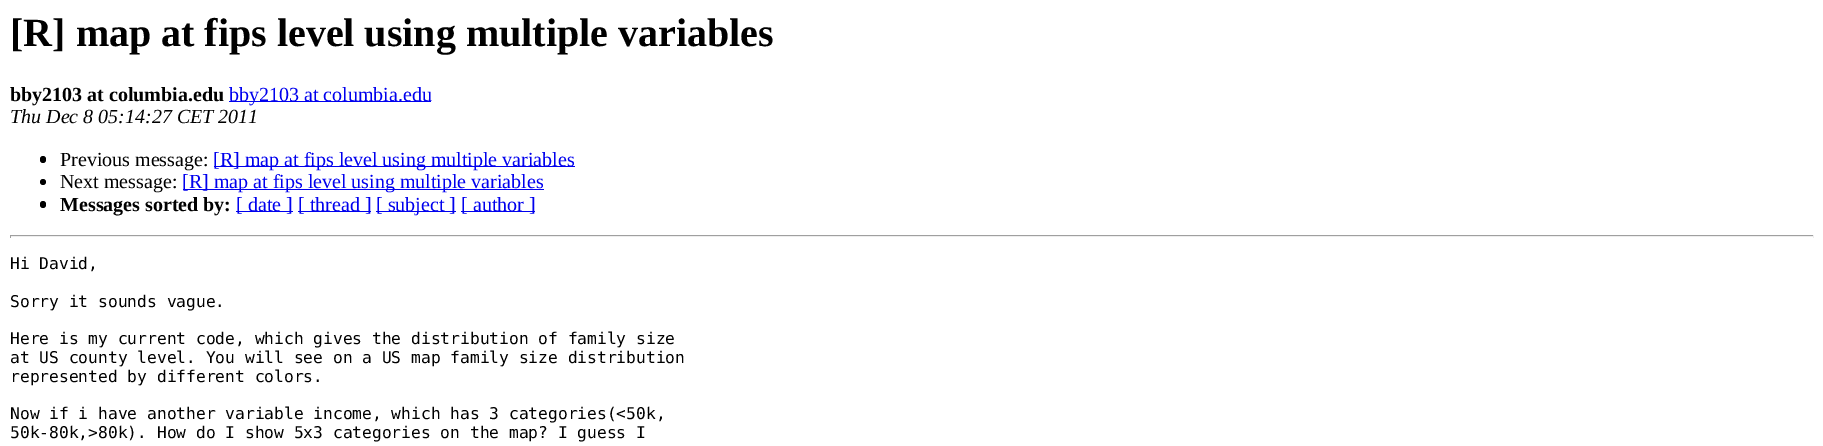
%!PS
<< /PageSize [1823 446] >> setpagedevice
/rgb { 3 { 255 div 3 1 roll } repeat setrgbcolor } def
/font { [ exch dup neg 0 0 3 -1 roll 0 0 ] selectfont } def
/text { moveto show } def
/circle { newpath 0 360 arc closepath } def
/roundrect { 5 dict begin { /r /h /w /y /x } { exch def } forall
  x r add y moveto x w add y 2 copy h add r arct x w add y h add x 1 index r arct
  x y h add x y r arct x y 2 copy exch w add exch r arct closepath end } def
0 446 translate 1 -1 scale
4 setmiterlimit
255 255 255 rgb
0 0 1823 446 rectfill
0 0 238 rgb
229 101 202 1 rectfill
0 0 0 rgb
40 156 6 7 3 roundrect fill
0 0 238 rgb
214 166 361 1 rectfill
0 0 0 rgb
43 182 3 circle fill
0 0 238 rgb
183 189 361 1 rectfill
0 0 0 rgb
40 201 6 7 3 roundrect fill
0 0 238 rgb
236 211 57 1 rectfill
298 211 73 1 rectfill
376 211 80 1 rectfill
461 211 74 1 rectfill
159 159 159 rgb
10 235 1804 1 rectfill
238 238 238 rgb
1813 235 1 3 rectfill
10 236 1804 1 rectfill
159 159 159 rgb
10 235 1 3 rectfill
/LiberationSerif-Bold 40 font
0 0 0 rgb
([R] map at fips level using multiple variables) 10 46 text
/LiberationSerif-Bold 20 font
(bby2103 at columbia.edu) 10 101 text
/LiberationSerif-Regular 20 font
0 0 238 rgb
(bby2103 at columbia.edu) 229 101 text
/LiberationSerif-Italic 20 font
0 0 0 rgb
(Thu Dec 8 05:14:27 CET 2011) 10 123 text
/LiberationSerif-Regular 20 font
(Previous message:) 60 166 text
0 0 238 rgb
([R] map at fips level using multiple variables) 213 166 text
0 0 0 rgb
(Next message:) 60 188 text
0 0 238 rgb
([R] map at fips level using multiple variables) 182 188 text
/LiberationSerif-Bold 20 font
0 0 0 rgb
(Messages sorted by:) 60 211 text
/LiberationSerif-Regular 20 font
0 0 238 rgb
([ date ]) 236 211 text
([ thread ]) 298 211 text
([ subject ]) 376 211 text
([ author ]) 461 211 text
/DejaVuSansMono-Regular 16.25 font
0 0 0 rgb
(Hi David,) 10 269 text
(Sorry it sounds vague.) 10 307 text
(Here is my current code, which gives the distribution of family size) 10 344 text
(at US county level. You will see on a US map family size distribution) 10 363 text
(represented by different colors.) 10 382 text
(Now if i have another variable income, which has 3 categories\(<50k,) 10 419 text
(50k-80k,>80k\). How do I show 5x3 categories on the map? I guess I) 10 438 text
showpage
